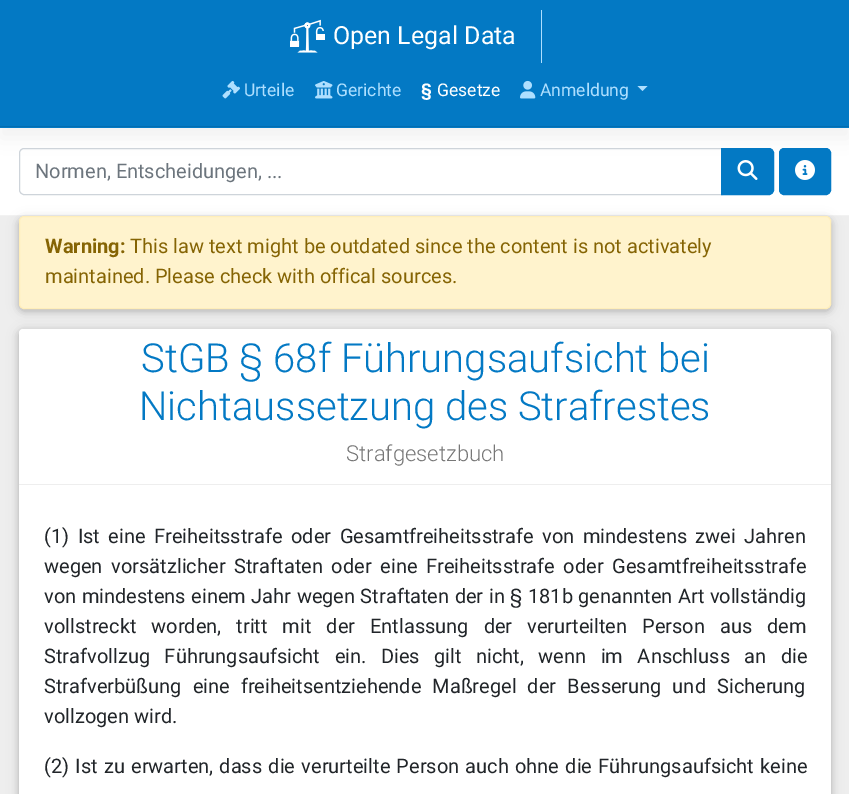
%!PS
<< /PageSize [849 794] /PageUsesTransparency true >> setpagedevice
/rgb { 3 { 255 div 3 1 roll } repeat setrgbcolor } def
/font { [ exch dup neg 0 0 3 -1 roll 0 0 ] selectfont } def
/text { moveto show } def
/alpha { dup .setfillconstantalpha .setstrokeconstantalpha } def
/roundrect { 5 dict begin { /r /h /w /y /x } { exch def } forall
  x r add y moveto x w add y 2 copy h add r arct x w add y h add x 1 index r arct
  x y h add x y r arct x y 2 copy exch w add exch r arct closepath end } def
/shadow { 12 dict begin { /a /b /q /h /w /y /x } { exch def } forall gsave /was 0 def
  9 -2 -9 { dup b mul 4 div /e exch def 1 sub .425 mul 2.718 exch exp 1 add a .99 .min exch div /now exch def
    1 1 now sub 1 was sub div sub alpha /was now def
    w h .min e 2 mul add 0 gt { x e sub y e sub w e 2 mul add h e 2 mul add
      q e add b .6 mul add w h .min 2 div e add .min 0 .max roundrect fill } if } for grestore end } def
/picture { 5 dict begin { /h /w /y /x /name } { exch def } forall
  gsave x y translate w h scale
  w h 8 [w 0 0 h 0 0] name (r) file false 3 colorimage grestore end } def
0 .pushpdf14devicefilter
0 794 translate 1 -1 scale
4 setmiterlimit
255 255 255 rgb
0 0 849 794 rectfill
0 0 0 rgb
0 10 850 128 0 10 0.05 shadow
3 121 196 rgb
0 0 849 128 rectfill
3 109 176 rgb
0 126 849 1 rectfill
174 223 255 rgb
541 10 1 53 rectfill
(img_01.rgb) 290 19 35 34 picture
(img_02.rgb) 222 80 18 19 picture
(img_03.rgb) 315 81 18 18 picture
(img_04.rgb) 520 80 16 19 picture
637.5 86 moveto 10 0 rlineto -5 5 rlineto closepath fill
242 242 242 rgb
0 215 849 1 rectfill
206 212 218 rgb
24 148.5 moveto 698.5 0 rlineto 0 46 rlineto -698.5 0 rlineto -2.5 0 -4.5 -2 -4.5 -4.5 rcurveto 0 -37 rlineto 0 -2.5 2 -4.5 4.5 -4.5 rcurveto closepath stroke
3 121 196 rgb
721.5 148.5 moveto 47.5 0 rlineto 2.5 0 4.5 2 4.5 4.5 rcurveto 0 37 rlineto 0 2.5 -2 4.5 -4.5 4.5 rcurveto -47.5 0 rlineto closepath gsave fill grestore
stroke
(img_05.rgb) 737 160 21 20 picture
779.5 148.5 51 46 4.5 roundrect gsave fill grestore
stroke
(img_06.rgb) 795 160 20 20 picture
238 238 238 rgb
0 216 849 578 rectfill
0 0 0 rgb
19 331 812 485 4 6 0.12 shadow
19 331 812 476 4 3 0.16 shadow
255 255 255 rgb
19 329 812 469 4 roundrect fill
0 0 0 rgb
19 219 812 92 5 6 0.12 shadow
19 219 812 92 5 3 0.16 shadow
255 243 205 rgb
19.5 216.5 811 92 4.5 roundrect gsave fill grestore
255 238 186 rgb
stroke
238 238 238 rgb
19 484 812 1 rectfill
/Roboto-Regular 25 font
255 255 255 rgb
(Open Legal Data) 333 44 text
/Roboto-Regular 17.5 font
174 223 255 rgb
(Urteile) 244 96 text
(Gerichte) 336 96 text
/Roboto-Bold 17.5 font
255 255 255 rgb
(§) 421 96 text
/Roboto-Regular 17.5 font
(Gesetze) 437 96 text
174 223 255 rgb
(Anmeldung) 540 96 text
/Roboto-Regular 20 font
108 117 125 rgb
(Normen, Entscheidungen, ...) 35 178 text
/Roboto-Bold 20 font
133 100 4 rgb
(Warning:) 45 253 text
/Roboto-Regular 20 font
(This law text might be outdated since the content is not activately) 130 253 text
(maintained. Please check with offical sources.) 45 283 text
/Roboto-Light 40 font
3 121 196 rgb
(StGB § 68f Führungsaufsicht bei) 141 372 text
(Nichtaussetzung des Strafrestes) 139 420 text
/Roboto-Light 22 font
119 119 119 rgb
(Strafgesetzbuch) 346 461 text
/Roboto-Regular 20 font
33 37 41 rgb
44 543 moveto 3.5 0 32 (\(1\) Ist eine Freiheitsstrafe oder Gesamtfreiheitsstrafe von mindestens zwei Jahren) widthshow
44 573 moveto 3.75 0 32 (wegen vorsätzlicher Straftaten oder eine Freiheitsstrafe oder Gesamtfreiheitsstrafe) widthshow
44 603 moveto 0.5 0 32 (von mindestens einem Jahr wegen Straftaten der in § 181b genannten Art vollständig) widthshow
44 633 moveto 10 0 32 (vollstreckt worden, tritt mit der Entlassung der verurteilten Person aus dem) widthshow
44 663 moveto 9.5 0 32 (Strafvollzug Führungsaufsicht ein. Dies gilt nicht, wenn im Anschluss an die) widthshow
44 693 moveto 6 0 32 (Strafverbüßung eine freiheitsentziehende Maßregel der Besserung und Sicherung) widthshow
(vollzogen wird.) 44 723 text
44 773 moveto 1.25 0 32 (\(2\) Ist zu erwarten, dass die verurteilte Person auch ohne die Führungsaufsicht keine) widthshow
.poppdf14devicefilter showpage
